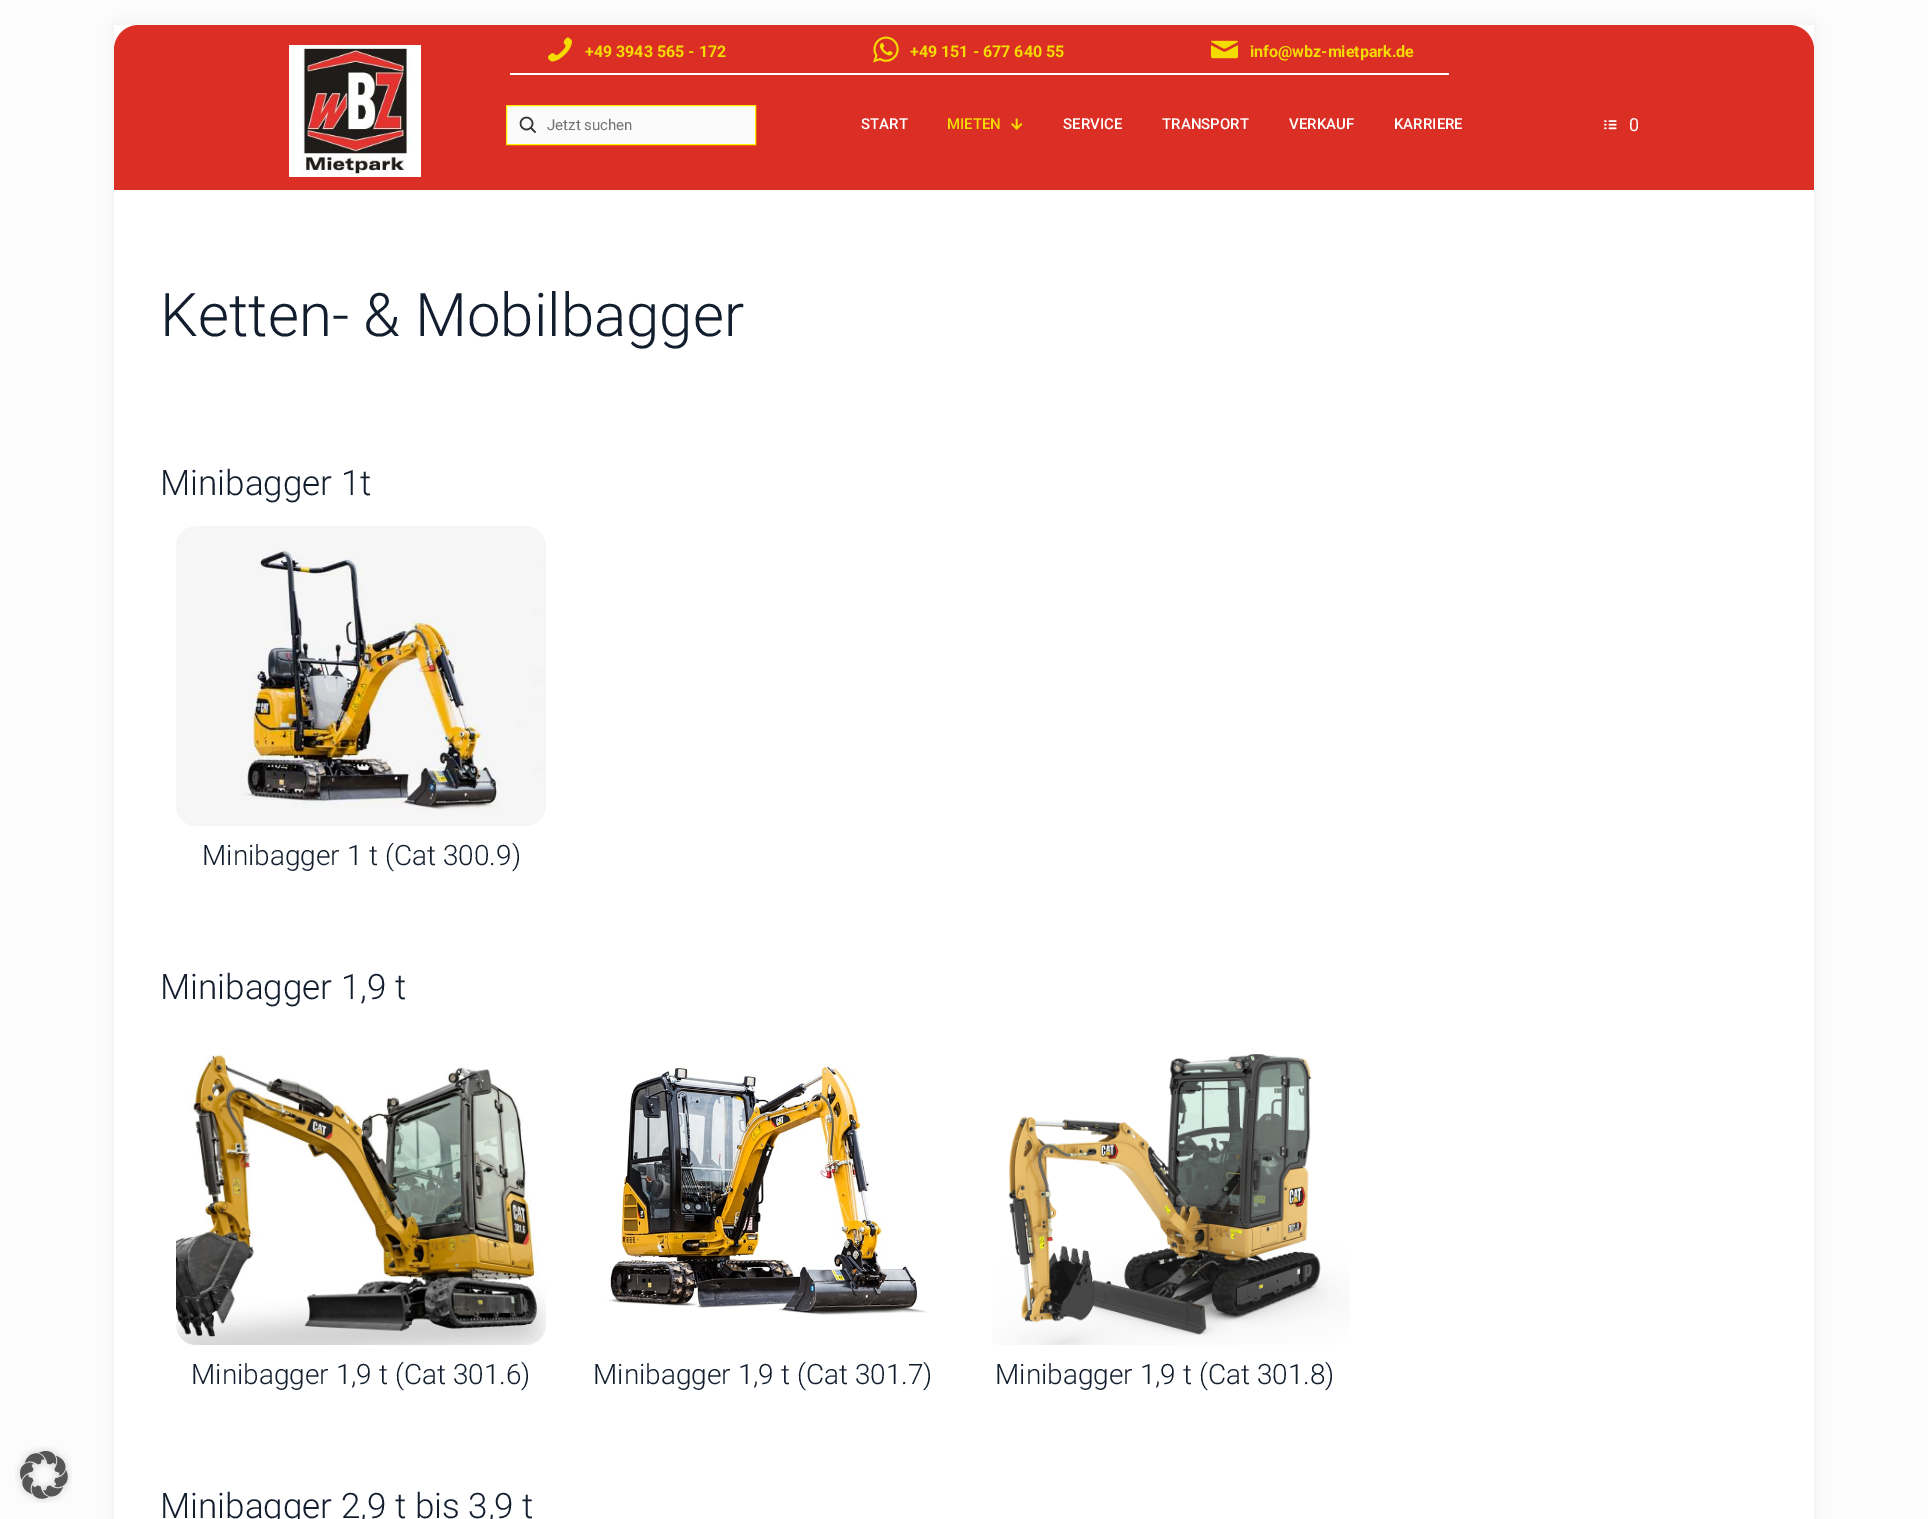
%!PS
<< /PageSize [1928 1519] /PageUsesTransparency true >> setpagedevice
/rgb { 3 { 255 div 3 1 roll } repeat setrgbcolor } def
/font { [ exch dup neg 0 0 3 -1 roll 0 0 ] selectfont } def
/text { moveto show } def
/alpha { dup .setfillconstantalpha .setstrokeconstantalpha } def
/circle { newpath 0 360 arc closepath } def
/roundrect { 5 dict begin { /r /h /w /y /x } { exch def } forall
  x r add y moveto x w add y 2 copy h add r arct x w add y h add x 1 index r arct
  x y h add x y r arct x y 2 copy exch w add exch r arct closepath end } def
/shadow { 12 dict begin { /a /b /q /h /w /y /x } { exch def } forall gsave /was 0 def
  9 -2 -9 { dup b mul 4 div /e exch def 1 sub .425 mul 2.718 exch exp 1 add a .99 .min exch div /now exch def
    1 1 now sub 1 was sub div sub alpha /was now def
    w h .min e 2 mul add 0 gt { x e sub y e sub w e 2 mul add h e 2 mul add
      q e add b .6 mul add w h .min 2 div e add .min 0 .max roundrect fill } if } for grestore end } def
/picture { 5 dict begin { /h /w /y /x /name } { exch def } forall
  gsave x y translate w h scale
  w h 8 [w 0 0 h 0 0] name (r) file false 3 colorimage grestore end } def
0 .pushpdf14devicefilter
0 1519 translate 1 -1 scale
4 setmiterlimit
252 252 252 rgb
0 0 1928 1519 rectfill
(img_01.rgb) 15 1446 57 57 picture
0 0 0 rgb
114 25 1700 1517 0 7.5 0.06 shadow
255 255 255 rgb
114 25 1700 1494 rectfill
219 47 37 rgb
139 25 moveto 1650 0 rlineto 14 0 25 11 25 25 rcurveto 0 30 rlineto -1700 0 rlineto 0 -30 rlineto 0 -14 11 -25 25 -25 rcurveto closepath fill
255 255 255 rgb
510 73 939 2 rectfill
(img_02.rgb) 548 37 24 25 picture
(img_03.rgb) 873 36 26 27 picture
(img_04.rgb) 1211 40 27 19 picture
219 47 37 rgb
114 80 1700 110 rectfill
(img_05.rgb) 289 45 132 132 picture
251 251 251 rgb
506.5 105.5 moveto 249 0 rlineto 0 39 rlineto -249 0 rlineto closepath gsave fill grestore
255 240 0 rgb
stroke
51 51 51 rgb
1.5 setlinewidth
526.5 123.5 6 circle stroke
530.5 127.5 moveto 5 5 rlineto stroke
(img_06.rgb) 1011 118 12 12 picture
(img_07.rgb) 1604 120 13 10 picture
(img_08.rgb) 176 526 370 300 picture
(img_09.rgb) 176 1054 370 291 picture
(img_10.rgb) 607 1064 320 251 picture
(img_11.rgb) 992 1054 358 291 picture
/Roboto-Bold 16 font
244 219 0 rgb
(+49 3943 565 - 172) 585 57 text
(+49 151 - 677 640 55) 910 57 text
(info@wbz-mietpark.de) 1250 57 text
/Roboto-Regular 15 font
114 115 116 rgb
(Jetzt suchen) 547 130 text
/Roboto-Medium 15 font
255 255 255 rgb
(START) 861 129 text
244 219 0 rgb
(MIETEN) 947 129 text
255 255 255 rgb
(SERVICE) 1063 129 text
(TRANSPORT) 1162 129 text
(VERKAUF) 1289 129 text
(KARRIERE) 1394 129 text
/Roboto-Regular 18 font
(0) 1629 131 text
/Roboto-Light 60 font
18 30 45 rgb
(Ketten- & Mobilbagger) 160 336 text
/Roboto-Light 35 font
(Minibagger 1t) 160 495 text
/Roboto-Light 28 font
(Minibagger 1 t \(Cat 300.9\)) 202 865 text
/Roboto-Light 35 font
(Minibagger 1,9 t) 160 999 text
/Roboto-Light 28 font
(Minibagger 1,9 t \(Cat 301.6\)) 191 1384 text
(Minibagger 1,9 t \(Cat 301.7\)) 593 1384 text
(Minibagger 1,9 t \(Cat 301.8\)) 995 1384 text
/Roboto-Light 35 font
(Minibagger 2,9 t bis 3,9 t) 160 1518 text
.poppdf14devicefilter showpage
